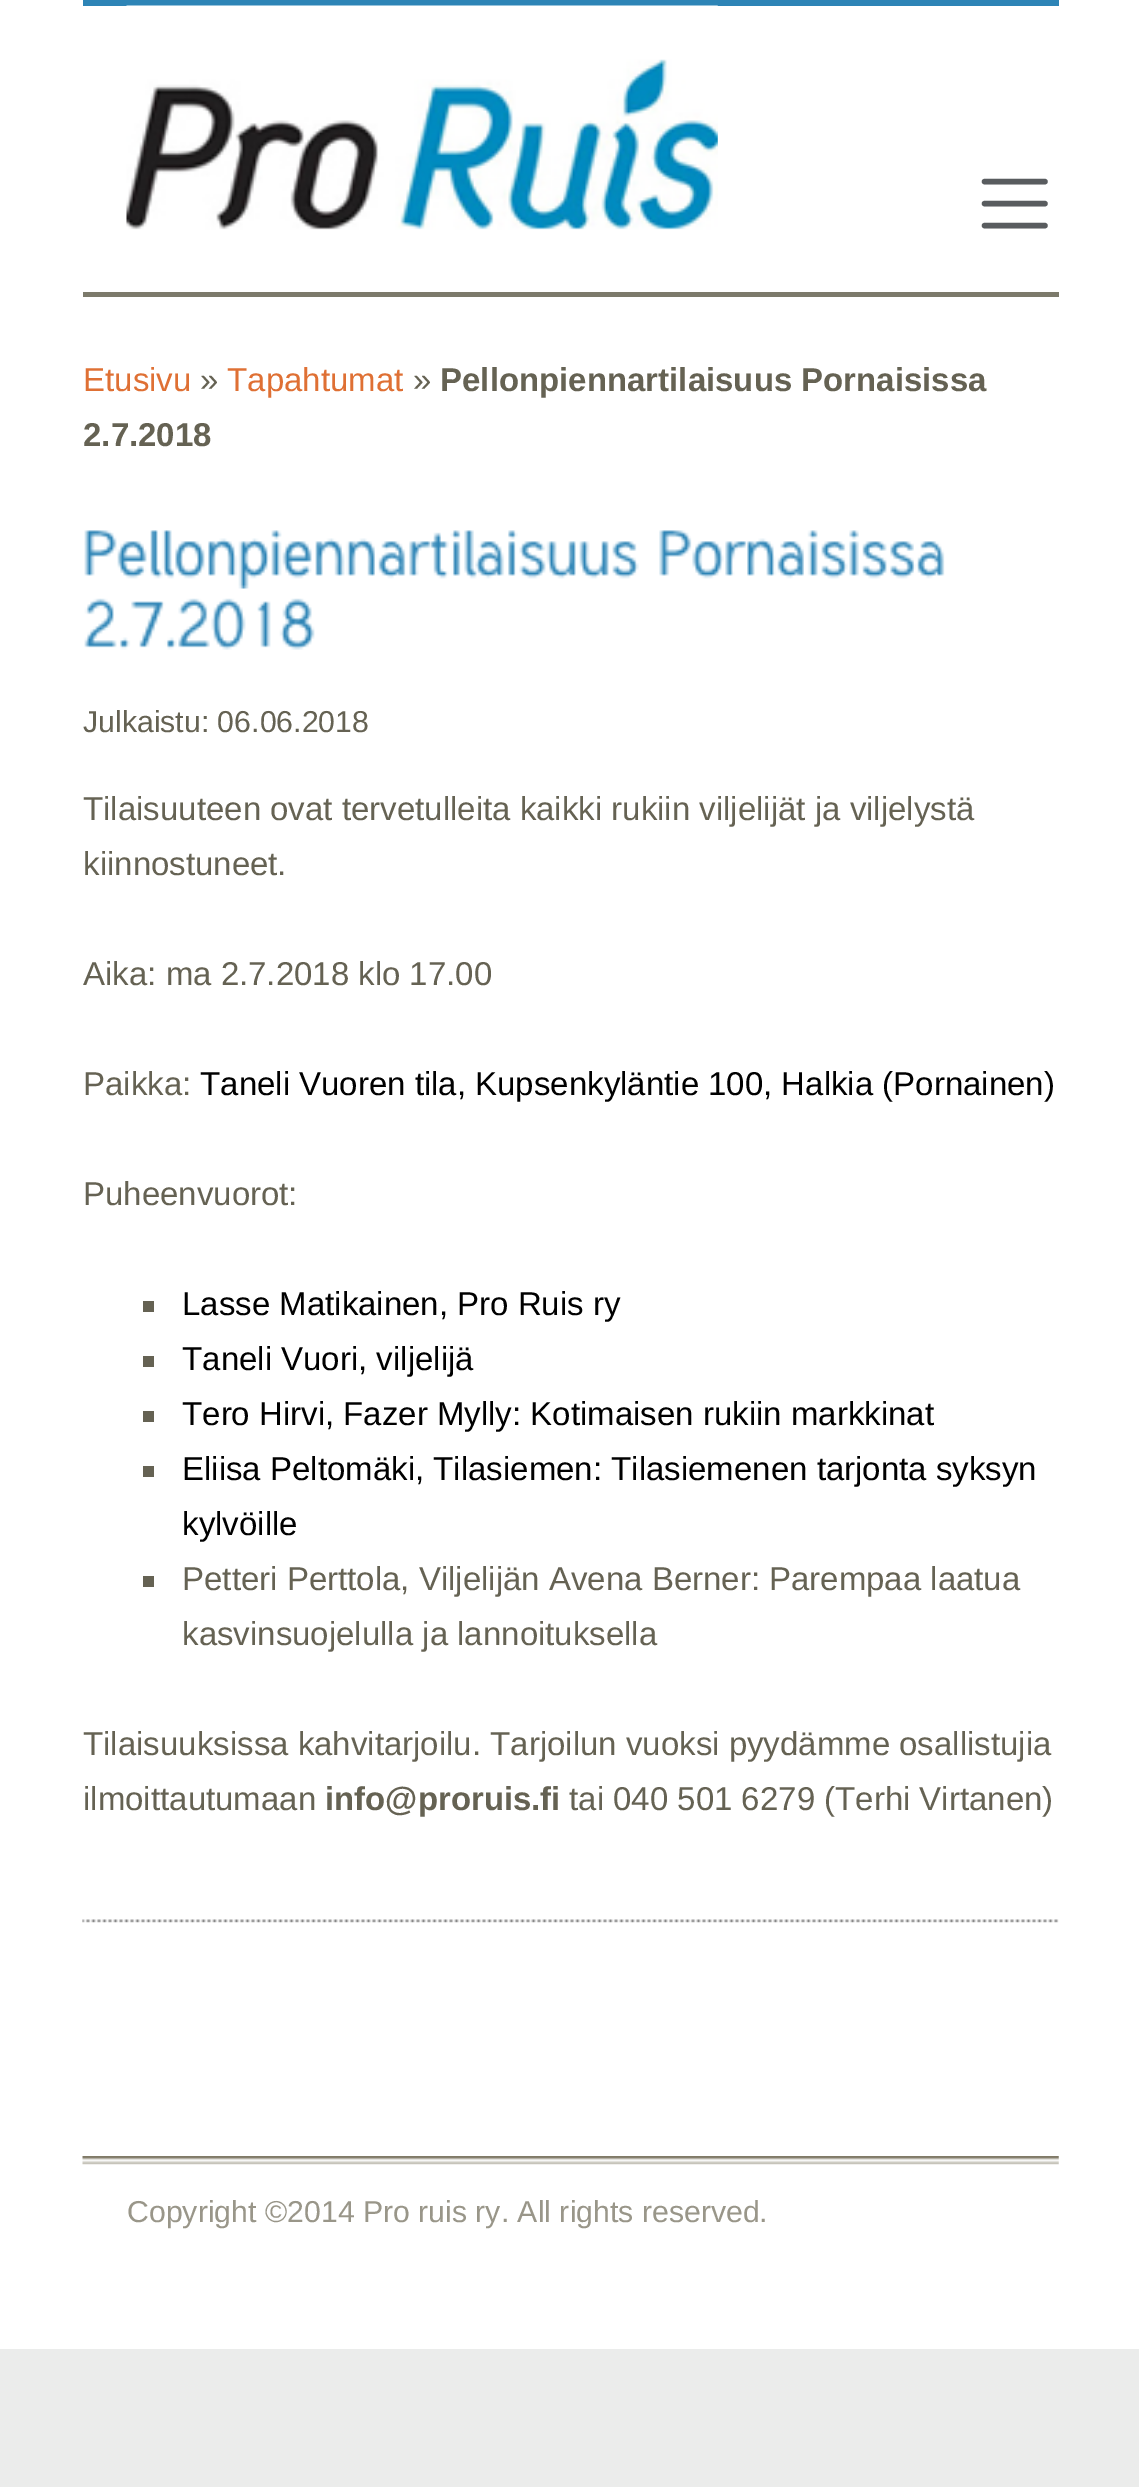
%!PS
<< /PageSize [1139 2487] >> setpagedevice
/rgb { 3 { 255 div 3 1 roll } repeat setrgbcolor } def
/font { [ exch dup neg 0 0 3 -1 roll 0 0 ] selectfont } def
/text { moveto show } def
/picture { 5 dict begin { /h /w /y /x /name } { exch def } forall
  gsave x y translate w h scale
  w h 8 [w 0 0 h 0 0] name (r) file false 3 colorimage grestore end } def
0 2487 translate 1 -1 scale
4 setmiterlimit
235 236 235 rgb
0 0 1139 2487 rectfill
255 255 255 rgb
0 0 1139 2349 rectfill
45 132 182 rgb
83 0 976 6 rectfill
(img_01.rgb) 126 5 592 225 picture
89 92 95 rgb
5.5 setlinewidth
1 setlinecap
984.5 181.5 moveto 60.5 0 rlineto 984.5 203.5 moveto 60.5 0 rlineto 984.5 225.5 moveto 60.5 0 rlineto stroke
124 122 107 rgb
83 292 976 5 rectfill
(img_02.rgb) 82 1919 977 4 picture
(img_03.rgb) 84 530 555 59 picture
(img_04.rgb) 659 530 286 49 picture
(img_05.rgb) 84 598 231 52 picture
101 98 83 rgb
143 1301 11 11 rectfill
143 1356 11 11 rectfill
143 1411 11 11 rectfill
143 1466 11 11 rectfill
143 1576 11 11 rectfill
(img_06.rgb) 82 2156 977 9 picture
/LiberationSans-Regular 33 font
223 112 52 rgb
(Etusivu) 83 391 text
101 98 83 rgb
(») 200 391 text
223 112 52 rgb
(Tapahtumat) 227 391 text
101 98 83 rgb
(») 413 391 text
/LiberationSans-Bold 33 font
(Pellonpiennartilaisuus Pornaisissa) 440 391 text
(2.7.2018) 83 446 text
/LiberationSans-Regular 30.25 font
(Julkaistu: 06.06.2018) 83 732 text
/LiberationSans-Regular 33 font
(Tilaisuuteen ovat tervetulleita kaikki rukiin viljelijät ja viljelystä) 83 820 text
(kiinnostuneet.) 83 875 text
(Aika: ma 2.7.2018 klo 17.00) 83 985 text
(Paikka:) 83 1095 text
0 0 0 rgb
(Taneli Vuoren tila, Kupsenkyläntie 100, Halkia \(Pornainen\)) 200 1095 text
101 98 83 rgb
(Puheenvuorot:) 83 1205 text
0 0 0 rgb
(Lasse Matikainen, Pro Ruis ry) 182 1315 text
(Taneli Vuori, viljelijä) 182 1370 text
(Tero Hirvi, Fazer Mylly: Kotimaisen rukiin markkinat) 182 1425 text
(Eliisa Peltomäki, Tilasiemen: Tilasiemenen tarjonta syksyn) 182 1480 text
(kylvöille) 182 1535 text
101 98 83 rgb
(Petteri Perttola, Viljelijän Avena Berner: Parempaa laatua) 182 1590 text
(kasvinsuojelulla ja lannoituksella) 182 1645 text
(Tilaisuuksissa kahvitarjoilu. Tarjoilun vuoksi pyydämme osallistujia) 83 1755 text
(ilmoittautumaan) 83 1810 text
/LiberationSans-Bold 33 font
(info@proruis.fi) 325 1810 text
/LiberationSans-Regular 33 font
(tai 040 501 6279 \(Terhi Virtanen\)) 569 1810 text
/LiberationSans-Regular 30.25 font
153 150 137 rgb
(Copyright ©2014 Pro ruis ry. All rights reserved.) 127 2222 text
showpage
